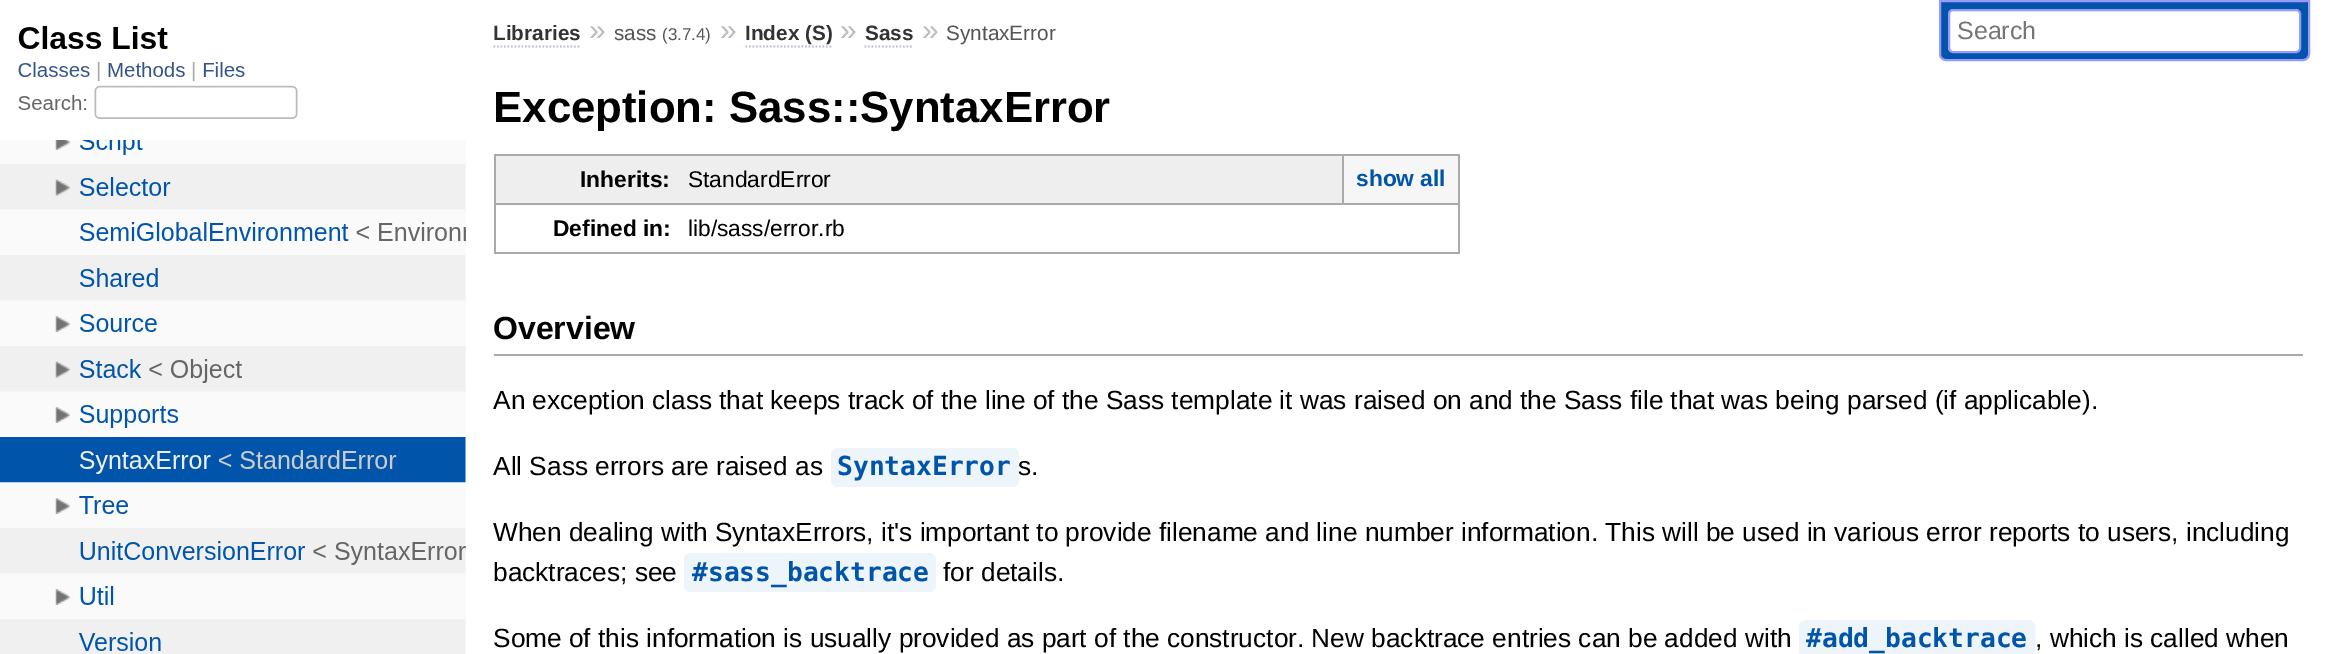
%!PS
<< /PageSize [2330 654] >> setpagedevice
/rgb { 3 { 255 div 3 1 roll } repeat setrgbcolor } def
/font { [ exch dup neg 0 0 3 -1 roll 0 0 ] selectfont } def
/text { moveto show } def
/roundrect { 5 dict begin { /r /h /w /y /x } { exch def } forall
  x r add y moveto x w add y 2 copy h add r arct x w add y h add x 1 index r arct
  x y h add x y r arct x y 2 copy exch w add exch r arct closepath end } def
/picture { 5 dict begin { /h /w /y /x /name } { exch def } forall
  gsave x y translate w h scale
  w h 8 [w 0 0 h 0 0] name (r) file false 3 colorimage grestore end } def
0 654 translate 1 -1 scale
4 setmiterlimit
255 255 255 rgb
0 0 2330 654 rectfill
(img_01.rgb) 0 0 466 654 picture
187 187 221 rgb
1.8 setlinewidth
[1.75 1.75] 0 setdash
493.5 46.5 moveto 87.5 0 rlineto stroke
745.5 46.5 moveto 87.5 0 rlineto stroke
864.5 46.5 moveto 49 0 rlineto stroke
0 85 170 rgb
1940 1 moveto 369 0 rlineto 0 53 rlineto 0 3.5 -2.5 6 -6 6 rcurveto -357 0 rlineto -3.5 0 -6 -2.5 -6 -6 rcurveto closepath gsave fill grestore
153 153 255 rgb
2 setlinewidth
[] 0 setdash
stroke
255 255 255 rgb
1949 10 351 42 4 roundrect gsave fill grestore
153 153 255 rgb
stroke
238 238 238 rgb
496 156 846 47 rectfill
170 170 170 rgb
494 154 966 2 rectfill
494 154 2 49 rectfill
494 203 966 2 rectfill
1458 154 2 100 rectfill
246 246 246 rgb
1344 156 114 47 rectfill
170 170 170 rgb
1342 156 2 47 rectfill
494 252 194 2 rectfill
494 203 2 51 rectfill
688 252 772 2 rectfill
494 354 1809 2 rectfill
237 244 250 rgb
831 448 188 39 7 roundrect fill
684 553 252 39 7 roundrect fill
1799 620 236 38 7 roundrect fill
/LiberationSans-Bold 20.75 font
51 51 51 rgb
(Libraries) 493 40 text
/LiberationSans-Regular 30 font
187 187 187 rgb
(») 589 40 text
/LiberationSans-Regular 20.75 font
85 85 85 rgb
(sass) 614 40 text
/LiberationSans-Regular 17 font
(\(3.7.4\)) 662 40 text
/LiberationSans-Regular 30 font
187 187 187 rgb
(») 720 40 text
/LiberationSans-Bold 20.75 font
51 51 51 rgb
(Index \(S\)) 745 40 text
/LiberationSans-Regular 30 font
187 187 187 rgb
(») 840 40 text
/LiberationSans-Bold 20.75 font
51 51 51 rgb
(Sass) 865 40 text
/LiberationSans-Regular 30 font
187 187 187 rgb
(») 922 40 text
/LiberationSans-Regular 20.75 font
85 85 85 rgb
(SyntaxError) 946 40 text
/LiberationSans-Regular 25 font
117 117 117 rgb
(Search) 1957 39 text
/LiberationSans-Bold 43.75 font
0 0 0 rgb
(Exception: Sass::SyntaxError) 493 122 text
/LiberationSans-Bold 22.75 font
(Inherits:) 580 187 text
/LiberationSans-Regular 22.75 font
(StandardError) 688 187 text
/LiberationSans-Bold 22.75 font
0 85 170 rgb
(show all) 1356 186 text
0 0 0 rgb
(Defined in:) 553 236 text
/LiberationSans-Regular 22.75 font
(lib/sass/error.rb) 688 236 text
/LiberationSans-Bold 32 font
(Overview) 493 339 text
/LiberationSans-Regular 26.25 font
(An exception class that keeps track of the line of the Sass template it was raised on and the Sass file that was being parsed \(if applicable\).) 493 409 text
(All Sass errors are raised as) 493 475 text
/DejaVuSansMono-Bold 26.25 font
0 85 170 rgb
(SyntaxError) 837 475 text
/LiberationSans-Regular 26.25 font
0 0 0 rgb
(s.) 1018 475 text
(When dealing with SyntaxErrors, it's important to provide filename and line number information. This will be used in various error reports to users, including) 493 541 text
(backtraces; see) 493 581 text
/DejaVuSansMono-Bold 26.25 font
0 85 170 rgb
(#sass_backtrace) 692 581 text
/LiberationSans-Regular 26.25 font
0 0 0 rgb
(for details.) 943 581 text
(Some of this information is usually provided as part of the constructor. New backtrace entries can be added with) 493 647 text
/DejaVuSansMono-Bold 26.25 font
0 85 170 rgb
(#add_backtrace) 1806 647 text
/LiberationSans-Regular 26.25 font
0 0 0 rgb
(, which is called when) 2035 647 text
showpage
